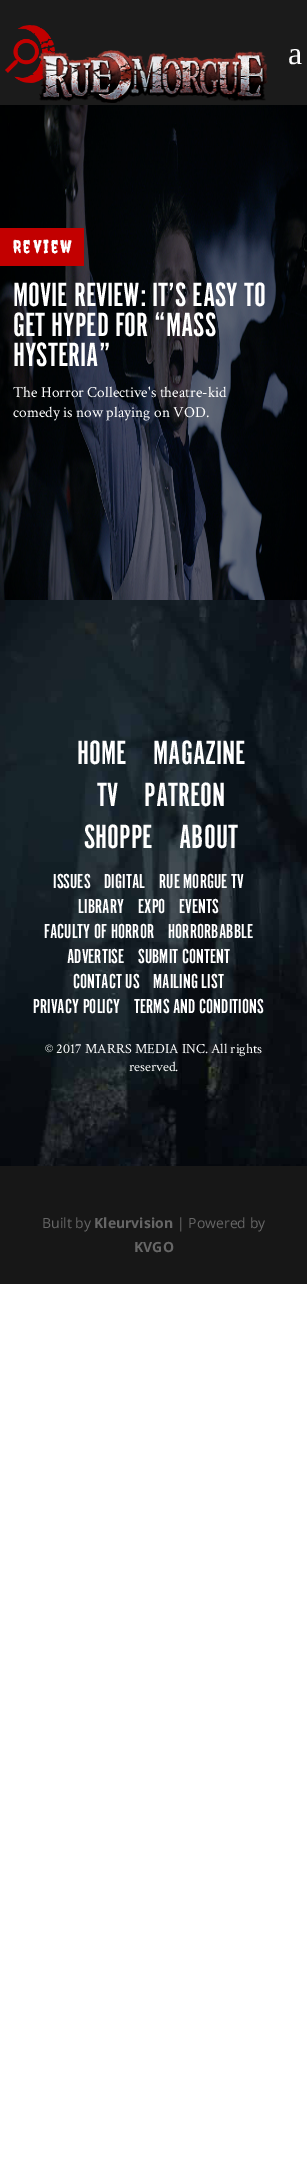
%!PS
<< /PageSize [307 2166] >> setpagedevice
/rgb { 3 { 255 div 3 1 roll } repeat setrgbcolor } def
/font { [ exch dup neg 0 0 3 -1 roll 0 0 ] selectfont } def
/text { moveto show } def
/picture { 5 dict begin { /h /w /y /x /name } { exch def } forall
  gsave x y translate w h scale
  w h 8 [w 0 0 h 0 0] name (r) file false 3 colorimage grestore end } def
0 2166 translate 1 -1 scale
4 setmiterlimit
255 255 255 rgb
0 0 307 2166 rectfill
27 27 27 rgb
0 0 307 105 rectfill
(img_02.rgb) 5 25 50 58 picture
(img_01.rgb) 39 50 229 53 picture
(img_03.rgb) 0 105 307 495 picture
194 0 0 rgb
0 228 84 38 rectfill
(img_04.rgb) 0 600 307 566 picture
23 23 23 rgb
0 1166 307 118 rectfill
/LiberationSerif-Regular 32 font
255 255 255 rgb
(a) 288 64 text
/Creepster-Regular 18 font
13 253 moveto 2 0 (Review) ashow
/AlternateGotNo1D-Regular 35 font
(MOVIE REVIEW: IT’S EASY TO) 13 306 text
(GET HYPED FOR “MASS) 13 336 text
(HYSTERIA”) 13 366 text
/CrimsonText-Regular 15.4 font
(The Horror Collective's theatre-kid) 13 397 text
(comedy is now playing on VOD.) 13 417 text
/AlternateGotNo1D-Regular 35 font
(HOME) 77 764 text
(MAGAZINE) 153 764 text
(TV) 97 806 text
(PATREON) 144 806 text
(SHOPPE) 84 848 text
(ABOUT) 179 848 text
/AlternateGotNo1D-Regular 21 font
(ISSUES) 53 888 text
(DIGITAL) 104 888 text
(RUE MORGUE TV) 159 888 text
(LIBRARY) 78 913 text
(EXPO) 138 913 text
(EVENTS) 179 913 text
(FACULTY OF HORROR) 44 938 text
(HORRORBABBLE) 168 938 text
(ADVERTISE) 67 963 text
(SUBMIT CONTENT) 138 963 text
(CONTACT US) 73 988 text
(MAILING LIST) 153 988 text
(PRIVACY POLICY) 33 1013 text
(TERMS AND CONDITIONS) 134 1013 text
/CrimsonText-Regular 14 font
(© 2017 MARRS MEDIA INC. All rights) 45 1053 text
(reserved.) 129 1071 text
/OpenSans-Regular 14 font
102 102 102 rgb
(Built by) 42 1228 text
/OpenSans-Bold 14 font
(Kleurvision) 94 1228 text
/OpenSans-Regular 14 font
(| Powered by) 177 1228 text
/OpenSans-Bold 14 font
(KVGO) 134 1252 text
showpage
